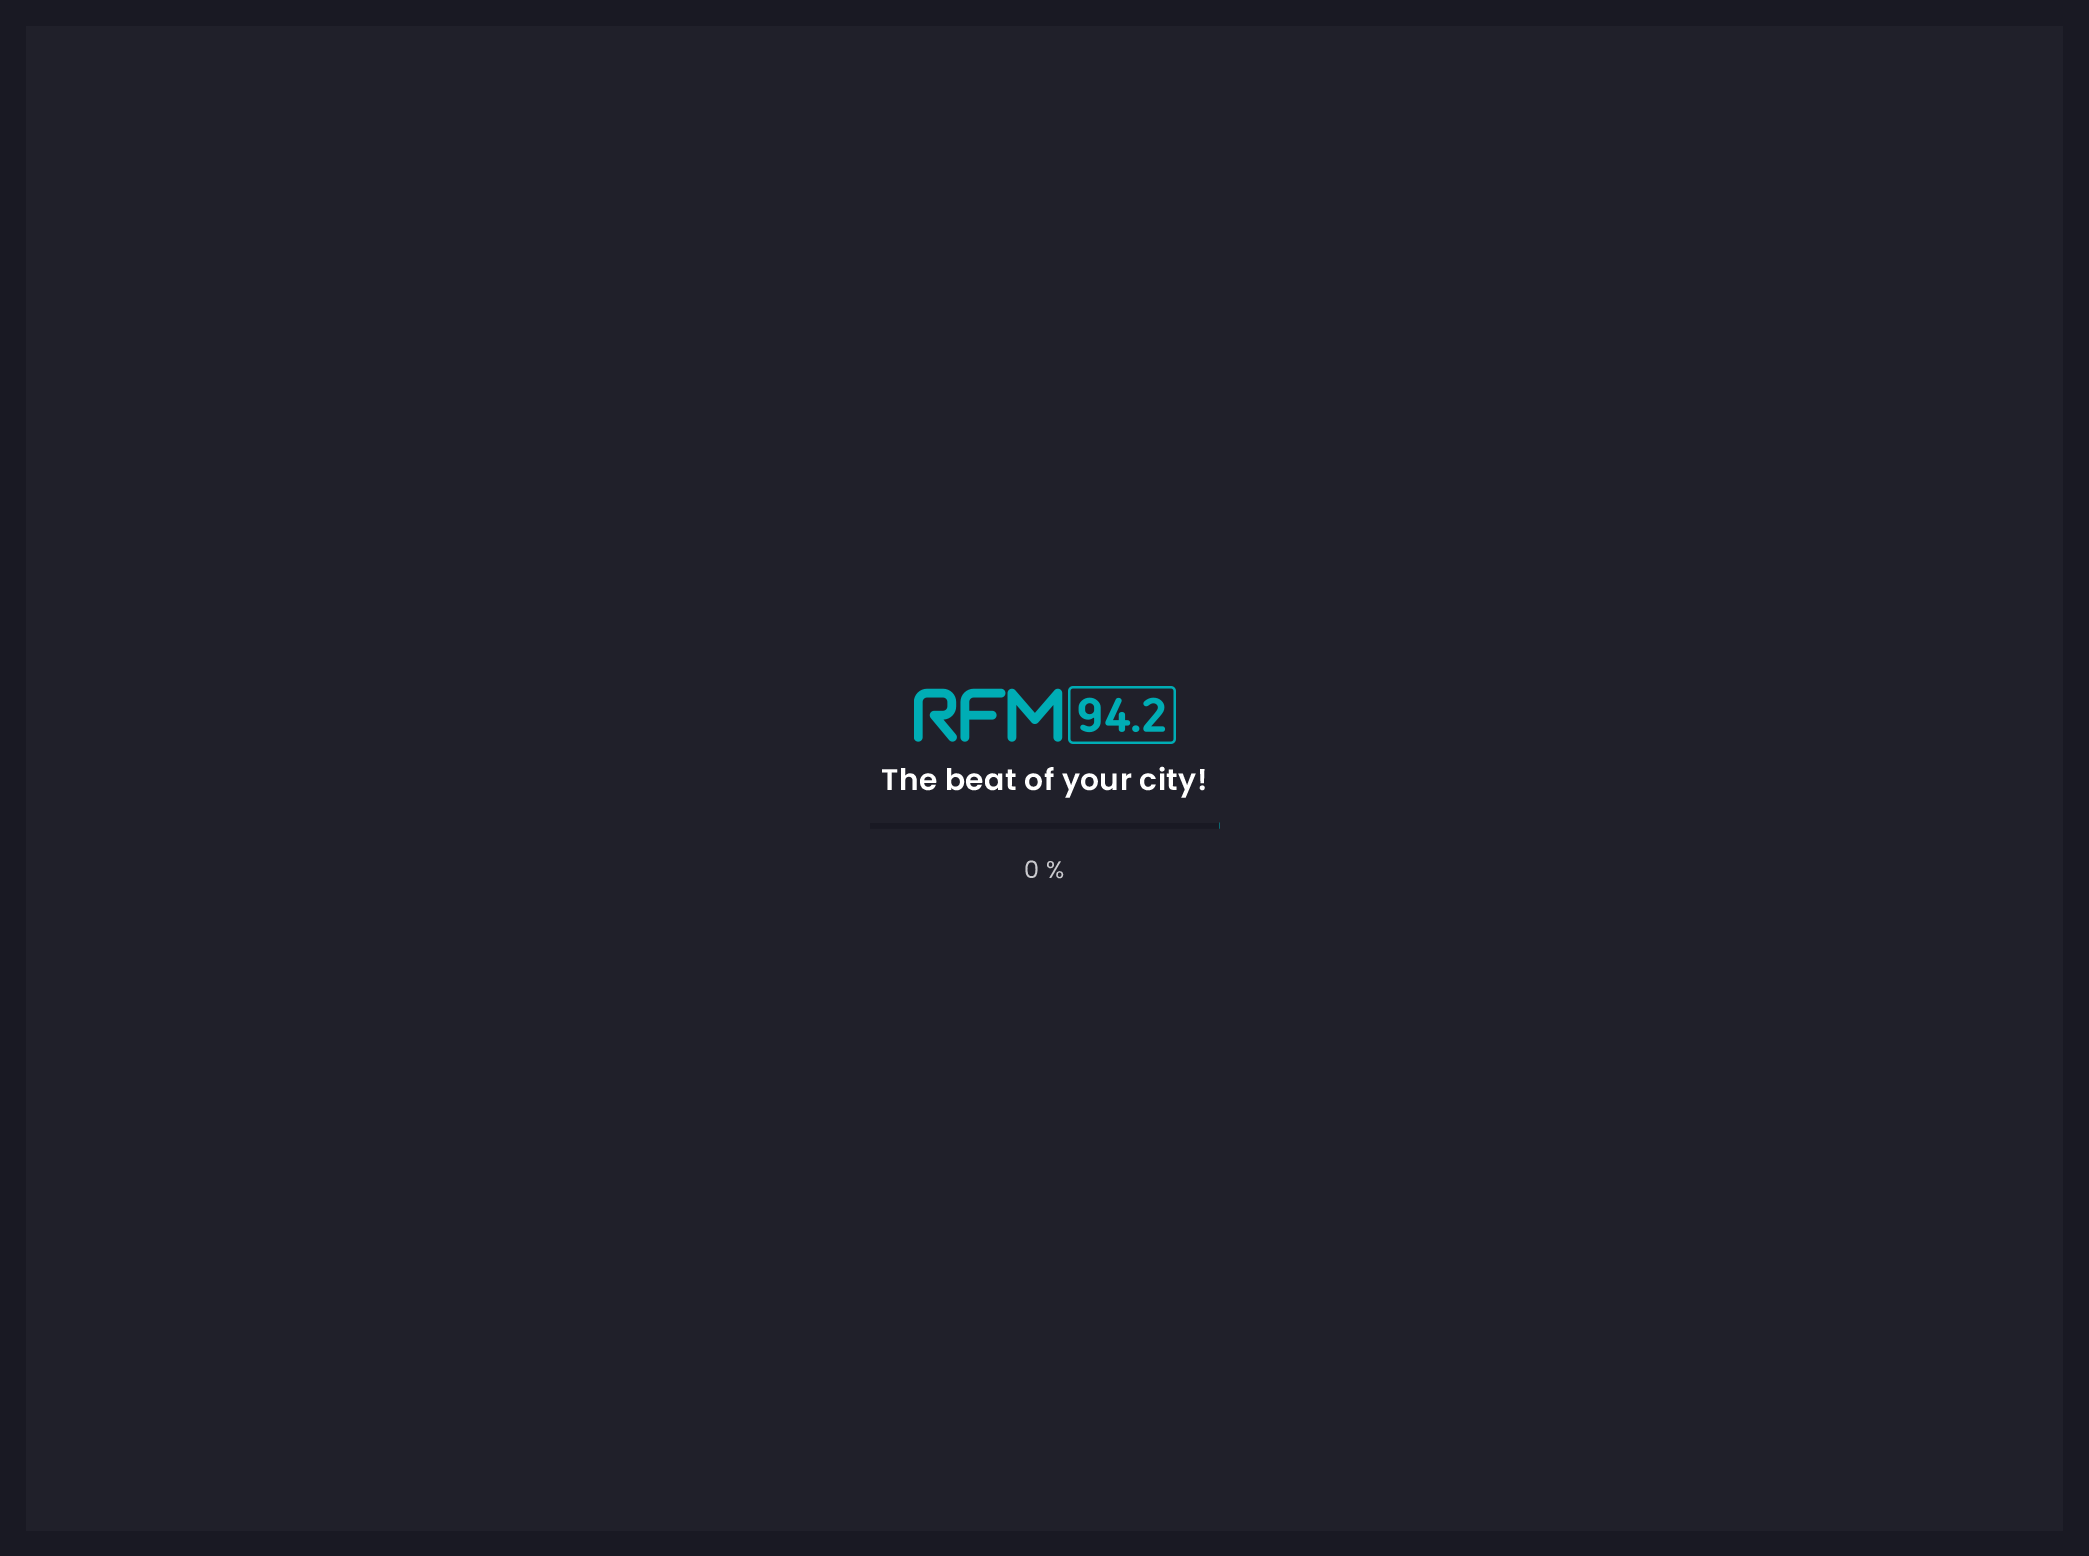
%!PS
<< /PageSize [2089 1556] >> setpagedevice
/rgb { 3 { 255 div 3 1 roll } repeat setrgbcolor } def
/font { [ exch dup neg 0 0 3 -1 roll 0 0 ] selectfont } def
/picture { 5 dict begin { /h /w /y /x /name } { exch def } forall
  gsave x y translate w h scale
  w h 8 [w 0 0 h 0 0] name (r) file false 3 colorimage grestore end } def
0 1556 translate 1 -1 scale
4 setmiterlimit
25 25 35 rgb
0 0 2089 1556 rectfill
32 32 42 rgb
26 26 2037 1505 rectfill
(img_01.rgb) 914 686 262 58 picture
gsave
870 823 350 7 rectclip
25 25 35 rgb
5.9 setlinewidth
870 825.5 moveto 350 0 rlineto stroke
grestore
0 173 181 rgb
5.9 setlinewidth
1219.5 825.5 moveto 0.5 0 rlineto stroke
/Poppins-SemiBold 29.75 font
255 255 255 rgb
881 790 moveto 0.4 0 (The beat of your city!) ashow
/Poppins-Regular 24 font
202 202 206 rgb
1024 878 moveto 0.4 0 (0 %) ashow
showpage
